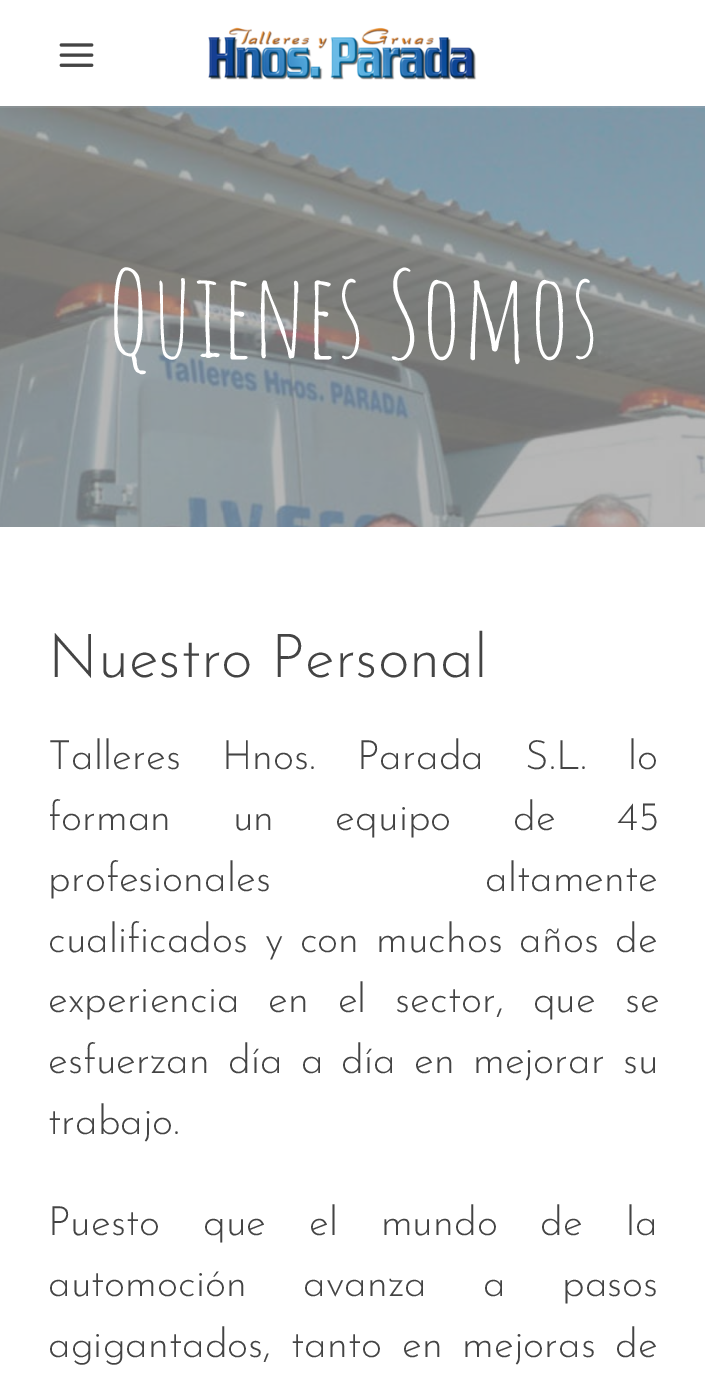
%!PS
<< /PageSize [705 1377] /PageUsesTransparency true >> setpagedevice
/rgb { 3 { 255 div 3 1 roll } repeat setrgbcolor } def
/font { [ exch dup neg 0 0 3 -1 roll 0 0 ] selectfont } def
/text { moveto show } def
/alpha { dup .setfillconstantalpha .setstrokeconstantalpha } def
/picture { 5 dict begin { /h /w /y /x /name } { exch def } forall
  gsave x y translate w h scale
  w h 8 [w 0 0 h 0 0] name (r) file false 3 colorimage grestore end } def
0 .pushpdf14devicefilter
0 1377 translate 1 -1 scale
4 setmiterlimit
255 255 255 rgb
0 0 705 1377 rectfill
(img_03.rgb) 0 106 705 421 picture
0.2 alpha
173 181 189 rgb
0 106 705 2 rectfill
1 alpha
(img_01.rgb) 59 43 35 24 picture
(img_02.rgb) 208 27 269 53 picture
/AmaticSC-Regular 118 font
255 255 255 rgb
(Quienes Somos) 107 358 text
/JosefinSans-Light 60.75 font
68 68 68 rgb
(Nuestro Personal) 48 677 text
/JosefinSans-Light 40.5 font
48 769 moveto 29 0 32 (Talleres Hnos. Parada S.L. lo) widthshow
48 830 moveto 49 0 32 (forman un equipo de 45) widthshow
48 891 moveto 202 0 32 (profesionales altamente) widthshow
48 952 moveto 4.25 0 32 (cualificados y con muchos años de) widthshow
48 1012 moveto 16.5 0 32 (experiencia en el sector, que se) widthshow
48 1073 moveto 5.75 0 32 (esfuerzan día a día en mejorar su) widthshow
(trabajo.) 48 1134 text
48 1235 moveto 30.5 0 32 (Puesto que el mundo de la) widthshow
48 1296 moveto 44 0 32 (automoción avanza a pasos) widthshow
48 1357 moveto 7.5 0 32 (agigantados, tanto en mejoras de) widthshow
.poppdf14devicefilter showpage
